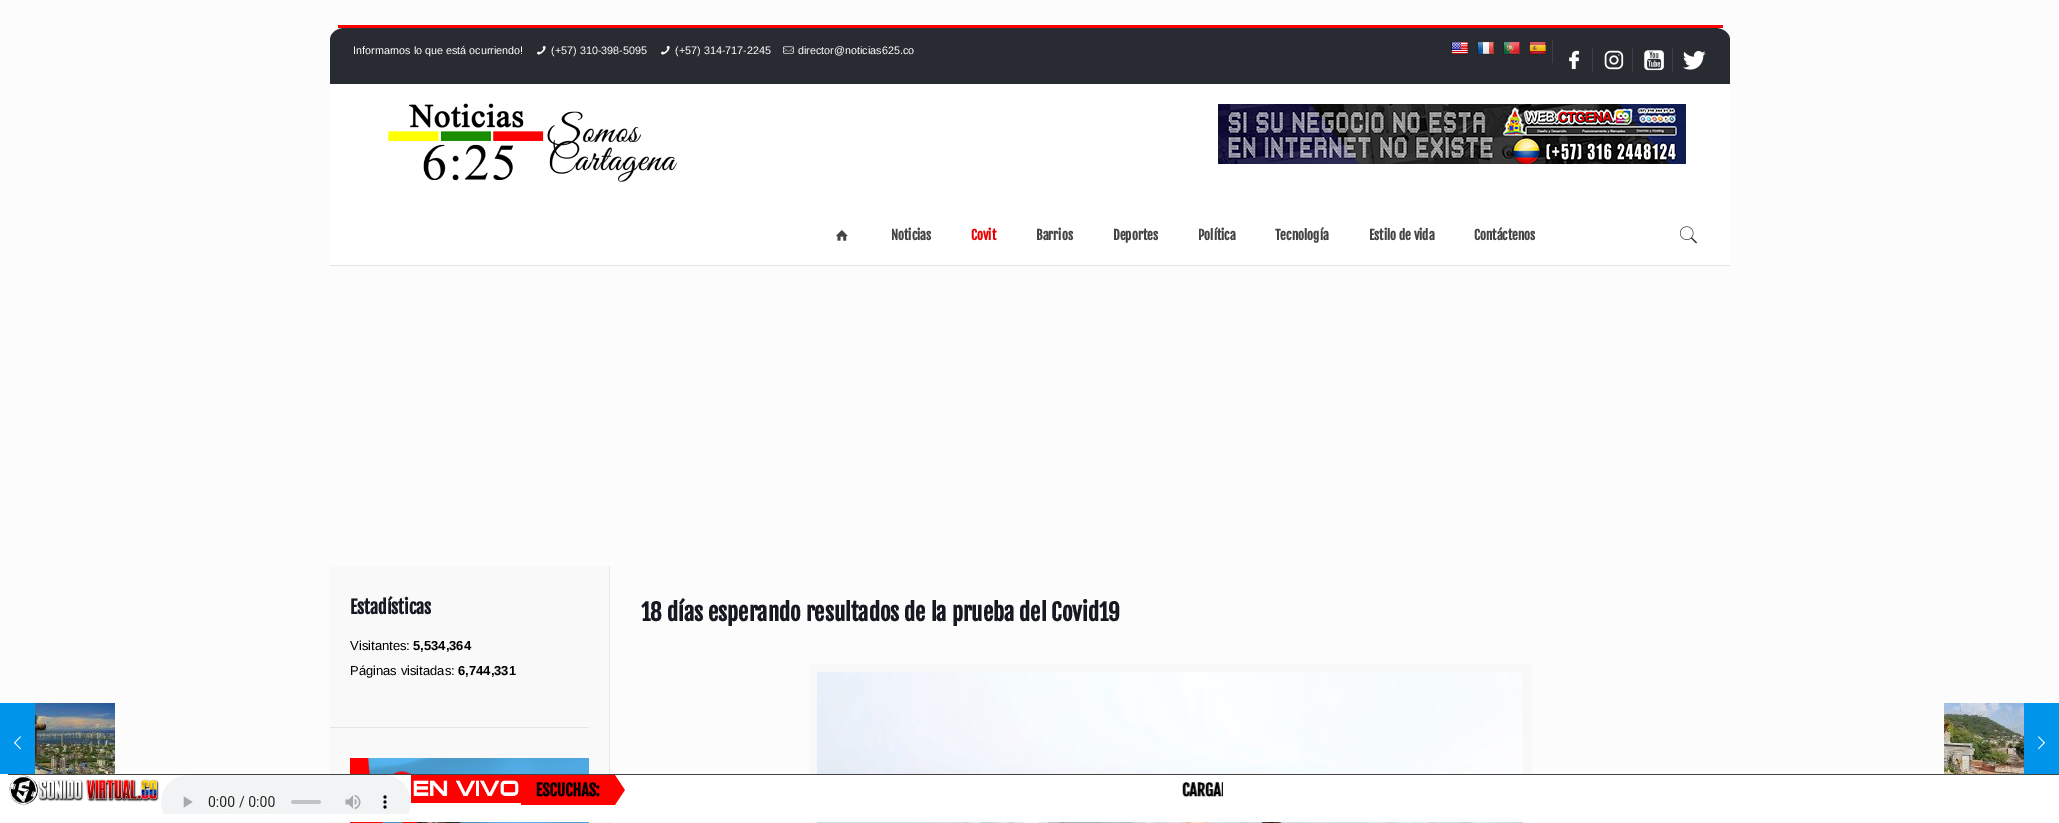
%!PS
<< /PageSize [2059 823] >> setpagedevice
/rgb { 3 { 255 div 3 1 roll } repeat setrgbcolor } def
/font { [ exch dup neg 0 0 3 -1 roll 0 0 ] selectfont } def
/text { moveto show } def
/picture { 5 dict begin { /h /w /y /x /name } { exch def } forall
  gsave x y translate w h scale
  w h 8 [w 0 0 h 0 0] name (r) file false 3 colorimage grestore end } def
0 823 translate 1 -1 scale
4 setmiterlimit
252 252 252 rgb
0 0 2059 823 rectfill
255 0 0 rgb
338 25 1385 3 rectfill
255 255 255 rgb
345 28 moveto -8 0 -15 5 -15 12 rcurveto 0 226 rlineto 1400 0 rlineto 0 -226 rlineto 0 -7 -7 -12 -15 -12 rcurveto closepath fill
41 43 51 rgb
345 28 moveto -8 0 -15 5 -15 12 rcurveto 0 44 rlineto 1400 0 rlineto 0 -44 rlineto 0 -7 -7 -12 -15 -12 rcurveto closepath fill
(img_01.rgb) 537 45 9 10 picture
(img_01.rgb) 661 45 9 10 picture
(img_02.rgb) 783 46 11 8 picture
62 64 71 rgb
1552 40 1 23 rectfill
(img_03.rgb) 1451 42 17 13 picture
(img_04.rgb) 1477 42 17 13 picture
(img_05.rgb) 1503 42 17 13 picture
(img_06.rgb) 1529 42 17 13 picture
1592 48 1 24 rectfill
(img_07.rgb) 1569 50 11 20 picture
1632 48 1 24 rectfill
(img_08.rgb) 1604 50 20 20 picture
1672 48 1 24 rectfill
(img_09.rgb) 1644 50 20 21 picture
(img_10.rgb) 1683 51 23 19 picture
227 227 227 rgb
330 265 1400 1 rectfill
(img_11.rgb) 388 103 290 79 picture
(img_12.rgb) 1218 104 468 60 picture
(img_13.rgb) 836 230 12 11 picture
(img_14.rgb) 1679 226 19 18 picture
232 232 232 rgb
609 566 1 257 rectfill
249 249 249 rgb
330 566 279 257 rectfill
229 229 229 rgb
330 727 259 1 rectfill
(img_15.rgb) 350 758 239 65 picture
248 248 248 rgb
8 setlinewidth
813 668 714 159 rectstroke
(img_16.rgb) 817 672 706 151 picture
255 255 255 rgb
0 774 2059 48 rectfill
(img_17.rgb) 8 774 2051 40 picture
0 149 235 rgb
0 703 35 71 rectfill
(img_18.rgb) 14 736 7 14 picture
(img_19.rgb) 35 703 80 71 picture
(img_20.rgb) 1944 703 80 71 picture
2024 703 35 71 rectfill
(img_21.rgb) 2038 736 7 14 picture
/LiberationSans-Regular 10.8 font
255 255 255 rgb
(Informarnos lo que está ocurriendo!) 353 54 text
(\(+57\) 310-398-5095) 551 54 text
(\(+57\) 314-717-2245) 675 54 text
(director@noticias625.co) 798 54 text
/FjallaOne-Bold 13 font
68 68 68 rgb
(Noticias) 891 240 text
234 0 0 rgb
(Covit) 971 240 text
68 68 68 rgb
(Barrios) 1036 240 text
(Deportes) 1113 240 text
(Política) 1198 240 text
(Tecnología) 1275 240 text
(Estilo de vida) 1369 240 text
(Contáctenos) 1474 240 text
/FjallaOne-Bold 18 font
22 25 34 rgb
(Estadísticas) 350 614 text
/LiberationSans-Regular 13 font
0 0 0 rgb
(Visitantes:) 350 650 text
/LiberationSans-Bold 13 font
(5,534,364) 413 650 text
/LiberationSans-Regular 13 font
(Páginas visitadas:) 350 675 text
/LiberationSans-Bold 13 font
(6,744,331) 458 675 text
/FjallaOne-Bold 23 font
22 25 34 rgb
(18 días esperando resultados de la prueba del Covid19) 641 621 text
showpage
